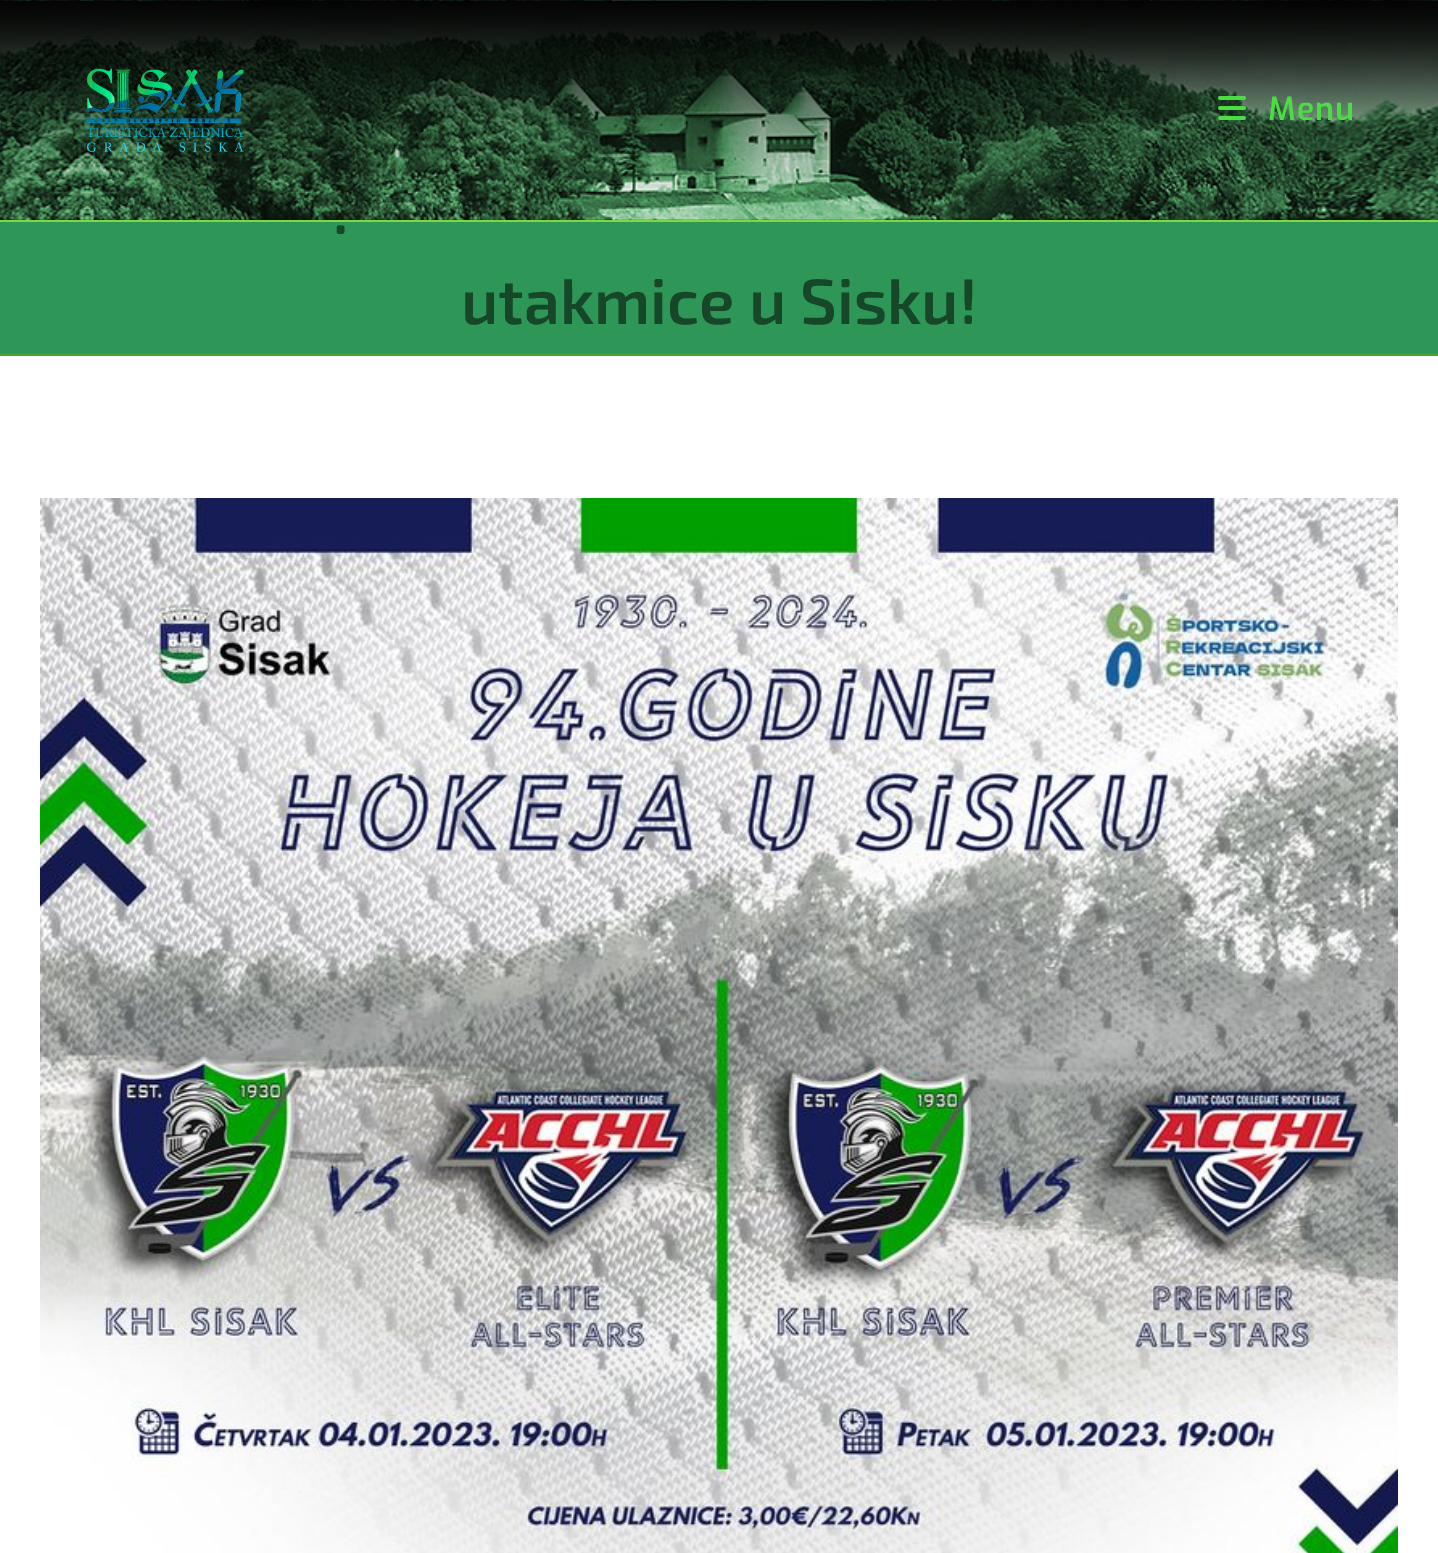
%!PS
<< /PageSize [1438 1553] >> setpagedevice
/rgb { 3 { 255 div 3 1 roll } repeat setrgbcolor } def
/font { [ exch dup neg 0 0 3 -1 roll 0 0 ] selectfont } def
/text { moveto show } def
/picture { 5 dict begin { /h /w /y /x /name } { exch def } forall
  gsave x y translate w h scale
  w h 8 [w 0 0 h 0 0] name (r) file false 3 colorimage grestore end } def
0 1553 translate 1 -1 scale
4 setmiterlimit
255 255 255 rgb
0 0 1438 1553 rectfill
(img_01.rgb) 0 0 1438 220 picture
129 215 66 rgb
0 220 1438 2 rectfill
(img_02.rgb) 86 68 158 84 picture
(img_03.rgb) 1218 96 28 24 picture
46 150 86 rgb
0 222 1438 132 rectfill
74 163 50 rgb
0 354 1438 2 rectfill
(img_04.rgb) 40 498 1358 1055 picture
/Exo-SemiBold 32 font
76 221 68 rgb
1268 120 moveto 1 0 (Menu) ashow
/Exo2-SemiBold 64 font
22 71 40 rgb
(.) 333 234 text
(utakmice u Sisku!) 461 324 text
showpage
